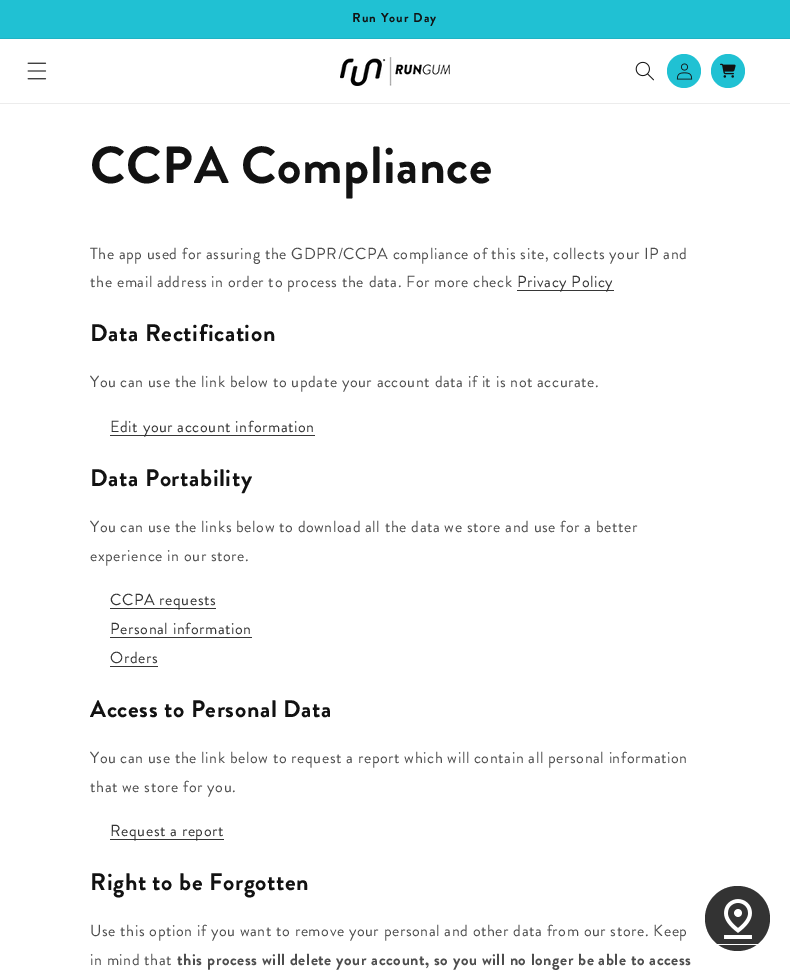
%!PS
<< /PageSize [790 971] >> setpagedevice
/rgb { 3 { 255 div 3 1 roll } repeat setrgbcolor } def
/font { [ exch dup neg 0 0 3 -1 roll 0 0 ] selectfont } def
/circle { newpath 0 360 arc closepath } def
/picture { 5 dict begin { /h /w /y /x /name } { exch def } forall
  gsave x y translate w h scale
  w h 8 [w 0 0 h 0 0] name (r) file false 3 colorimage grestore end } def
0 971 translate 1 -1 scale
4 setmiterlimit
255 255 255 rgb
0 0 790 971 rectfill
32 193 211 rgb
0 0 790 38 rectfill
31 179 196 rgb
0 38 790 1 rectfill
236 236 236 rgb
0 103 790 1 rectfill
(img_01.rgb) 27 62 20 18 picture
(img_02.rgb) 340 57 110 29 picture
(img_03.rgb) 635 61 19 20 picture
32 193 211 rgb
684 71 17 circle fill
(img_04.rgb) 676 63 17 17 picture
728 71 17 circle fill
(img_05.rgb) 720 63 16 15 picture
54 54 54 rgb
517 290 97 1 rectfill
110 435 205 1 rectfill
110 608 106 1 rectfill
110 637 142 1 rectfill
110 666 48 1 rectfill
110 839 114 1 rectfill
51 51 51 rgb
737.5 918.5 32.5 circle fill
(img_06.rgb) 724 899 28 40 picture
255 255 255 rgb
714 944 48 1 rectfill
/BrandonGrotesque-Bold 13 font
18 18 18 rgb
352 22 moveto 1 0 (Run Your Day) ashow
/BrandonGrotesque-Bold 52 font
90 183 moveto 0.6 0 (CCPA Compliance) ashow
/BrandonGrotesque-Regular 16 font
77 77 77 rgb
90 259 moveto 0.6 0 (The app used for assuring the GDPR/CCPA compliance of this site, collects your IP and) ashow
90 287 moveto 0.6 0 (the email address in order to process the data. For more check) ashow
53 53 53 rgb
517 287 moveto 0.6 0 (Privacy Policy) ashow
/BrandonGrotesque-Bold 24 font
18 18 18 rgb
90 341 moveto 0.6 0 (Data Rectification) ashow
/BrandonGrotesque-Regular 16 font
77 77 77 rgb
90 387 moveto 0.6 0 (You can use the link below to update your account data if it is not accurate.) ashow
53 53 53 rgb
110 432 moveto 0.6 0 (Edit your account information) ashow
/BrandonGrotesque-Bold 24 font
18 18 18 rgb
90 486 moveto 0.6 0 (Data Portability) ashow
/BrandonGrotesque-Regular 16 font
77 77 77 rgb
90 532 moveto 0.6 0 (You can use the links below to download all the data we store and use for a better) ashow
90 561 moveto 0.6 0 (experience in our store.) ashow
53 53 53 rgb
110 605 moveto 0.6 0 (CCPA requests) ashow
110 634 moveto 0.6 0 (Personal information) ashow
110 663 moveto 0.6 0 (Orders) ashow
/BrandonGrotesque-Bold 24 font
18 18 18 rgb
90 717 moveto 0.6 0 (Access to Personal Data) ashow
/BrandonGrotesque-Regular 16 font
77 77 77 rgb
90 763 moveto 0.6 0 (You can use the link below to request a report which will contain all personal information) ashow
90 792 moveto 0.6 0 (that we store for you.) ashow
53 53 53 rgb
110 836 moveto 0.6 0 (Request a report) ashow
/BrandonGrotesque-Bold 24 font
18 18 18 rgb
90 890 moveto 0.6 0 (Right to be Forgotten) ashow
/BrandonGrotesque-Regular 16 font
77 77 77 rgb
90 936 moveto 0.6 0 (Use this option if you want to remove your personal and other data from our store. Keep) ashow
90 965 moveto 0.6 0 (in mind that) ashow
/BrandonGrotesque-Bold 16 font
177 965 moveto 0.6 0 (this process will delete your account, so you will no longer be able to access) ashow
showpage
